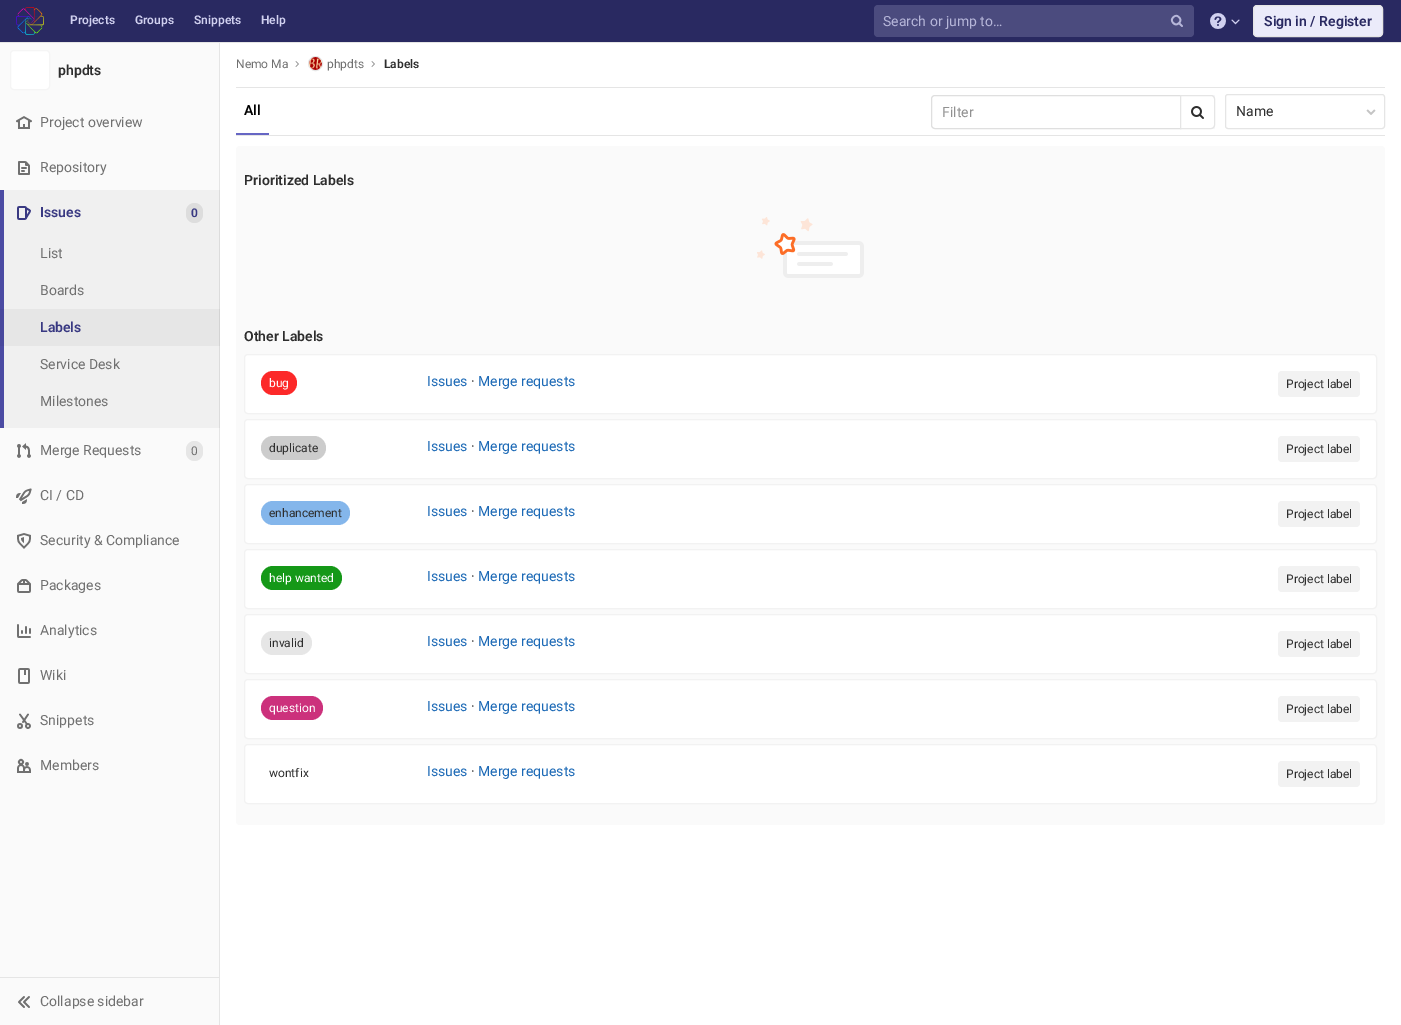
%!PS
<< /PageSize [1401 1025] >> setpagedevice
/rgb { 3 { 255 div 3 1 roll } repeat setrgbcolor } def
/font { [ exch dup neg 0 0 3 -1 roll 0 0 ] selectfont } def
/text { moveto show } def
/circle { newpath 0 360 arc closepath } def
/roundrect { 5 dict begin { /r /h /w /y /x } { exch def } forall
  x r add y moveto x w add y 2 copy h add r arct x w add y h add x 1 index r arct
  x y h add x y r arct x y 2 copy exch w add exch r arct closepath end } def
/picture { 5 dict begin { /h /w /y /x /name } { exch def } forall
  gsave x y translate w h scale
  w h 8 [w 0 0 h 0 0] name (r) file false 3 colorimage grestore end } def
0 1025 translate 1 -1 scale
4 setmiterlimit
255 255 255 rgb
0 0 1401 1025 rectfill
229 229 229 rgb
219 40 1 985 rectfill
41 41 97 rgb
0 0 1401 42 rectfill
229 229 229 rgb
0 42 1401 1 rectfill
(img_01.rgb) 16 7 28 28 picture
75 75 126 rgb
874 5 320 32 4 roundrect fill
(img_02.rgb) 1170 14 13 13 picture
(img_03.rgb) 1210 13 16 16 picture
(img_04.rgb) 1231 19 9 6 picture
235 235 250 rgb
1253.5 5.5 129 31 3.5 roundrect gsave fill grestore
229 229 229 rgb
stroke
250 250 250 rgb
0 43 219 982 rectfill
240 240 240 rgb
4 190 215 238 rectfill
230 230 230 rgb
4 309 215 37 rectfill
220 220 220 rgb
219 190 1 238 rectfill
211 211 211 rgb
219 309 1 37 rectfill
255 255 255 rgb
10.5 50.5 39 39 3.5 roundrect gsave fill grestore
245 245 245 rgb
stroke
(img_05.rgb) 16 116 16 13 picture
(img_06.rgb) 18 161 12 14 picture
75 75 163 rgb
0 190 4 238 rectfill
72 72 156 rgb
0 309 4 37 rectfill
(img_07.rgb) 17 206 14 14 picture
221 221 221 rgb
186 203 17 20 8.5 roundrect fill
(img_08.rgb) 17 443 14 15 picture
230 230 230 rgb
186 441 17 20 8.5 roundrect fill
(img_09.rgb) 16 488 16 16 picture
(img_10.rgb) 17 533 14 16 picture
(img_11.rgb) 17 579 14 14 picture
(img_12.rgb) 17 624 14 14 picture
(img_13.rgb) 18 668 12 16 picture
(img_14.rgb) 17 713 14 16 picture
(img_15.rgb) 17 758 14 15 picture
229 229 229 rgb
0 977 219 1 rectfill
(img_16.rgb) 18 996 12 12 picture
236 87 1149 1 rectfill
(img_17.rgb) 295 61 4 6 picture
315.5 63.5 7 circle stroke
(img_18.rgb) 309 57 13 13 picture
(img_17.rgb) 371 61 4 6 picture
236 135 1149 1 rectfill
102 102 196 rgb
236 133 33 2 rectfill
223 223 223 rgb
935 95.5 moveto 245.5 0 rlineto 0 33 rlineto -245.5 0 rlineto -2 0 -3.5 -1.5 -3.5 -3.5 rcurveto 0 -26 rlineto 0 -2 1.5 -3.5 3.5 -3.5 rcurveto closepath stroke
247 248 250 rgb
1211 95 4 34 rectfill
255 255 255 rgb
1180.5 95.5 moveto 30.5 0 rlineto 2 0 3.5 1.5 3.5 3.5 rcurveto 0 26 rlineto 0 2 -1.5 3.5 -3.5 3.5 rcurveto -30.5 0 rlineto closepath gsave fill grestore
229 229 229 rgb
stroke
(img_19.rgb) 1191 106 13 13 picture
1225.5 94.5 159 34 2.5 roundrect stroke
(img_20.rgb) 1366 109 10 6 picture
250 250 250 rgb
236 146 1149 679 4 roundrect fill
(img_21.rgb) 757 217 107 61 picture
255 255 255 rgb
244.5 354.5 1132 59 3.5 roundrect gsave fill grestore
242 242 242 rgb
stroke
252 41 41 rgb
261 371 36 24 12 roundrect fill
242 242 242 rgb
1278 371 82 26 4 roundrect fill
255 255 255 rgb
244.5 419.5 1132 59 3.5 roundrect gsave fill grestore
242 242 242 rgb
stroke
204 204 204 rgb
261 436 65 24 12 roundrect fill
242 242 242 rgb
1278 436 82 26 4 roundrect fill
255 255 255 rgb
244.5 484.5 1132 59 3.5 roundrect gsave fill grestore
242 242 242 rgb
stroke
132 182 235 rgb
261 501 89 24 12 roundrect fill
242 242 242 rgb
1278 501 82 26 4 roundrect fill
255 255 255 rgb
244.5 549.5 1132 59 3.5 roundrect gsave fill grestore
242 242 242 rgb
stroke
21 152 24 rgb
261 566 81 24 12 roundrect fill
242 242 242 rgb
1278 566 82 26 4 roundrect fill
255 255 255 rgb
244.5 614.5 1132 59 3.5 roundrect gsave fill grestore
242 242 242 rgb
stroke
230 230 230 rgb
261 631 51 24 12 roundrect fill
242 242 242 rgb
1278 631 82 26 4 roundrect fill
255 255 255 rgb
244.5 679.5 1132 59 3.5 roundrect gsave fill grestore
242 242 242 rgb
stroke
204 49 124 rgb
261 696 62 24 12 roundrect fill
242 242 242 rgb
1278 696 82 26 4 roundrect fill
255 255 255 rgb
244.5 744.5 1132 59 3.5 roundrect gsave fill grestore
242 242 242 rgb
stroke
1278 761 82 26 4 roundrect fill
/Roboto-SemiBold 12 font
209 209 240 rgb
(Projects) 70 24 text
(Groups) 135 24 text
(Snippets) 194 24 text
(Help) 261 24 text
/Roboto-Regular 14 font
182 182 217 rgb
(Search or jump to…) 883 26 text
/Roboto-SemiBold 14 font
41 41 97 rgb
(Sign in / Register) 1264 26 text
46 46 46 rgb
(phpdts) 58 75 text
/Roboto-Regular 14 font
112 112 112 rgb
(Project overview) 40 127 text
(Repository) 40 172 text
/Roboto-SemiBold 14 font
57 57 130 rgb
(Issues) 40 217 text
/Roboto-SemiBold 12 font
(0) 191 217 text
/Roboto-Regular 14 font
112 112 112 rgb
(List) 40 258 text
(Boards) 40 295 text
/Roboto-SemiBold 14 font
57 57 130 rgb
(Labels) 40 332 text
/Roboto-Regular 14 font
112 112 112 rgb
(Service Desk) 40 369 text
(Milestones) 40 406 text
(Merge Requests) 40 455 text
/Roboto-Regular 12 font
(0) 191 455 text
/Roboto-Regular 14 font
(CI / CD) 40 500 text
(Security & Compliance) 40 545 text
(Packages) 40 590 text
(Analytics) 40 635 text
(Wiki) 40 680 text
(Snippets) 40 725 text
(Members) 40 770 text
(Collapse sidebar) 40 1006 text
/Roboto-Regular 12 font
(Nemo Ma) 236 68 text
(phpdts) 327 68 text
/Roboto-SemiBold 12 font
46 46 46 rgb
(Labels) 384 68 text
/Roboto-SemiBold 14 font
0 0 0 rgb
(All) 244 115 text
/Roboto-Regular 14 font
145 145 145 rgb
(Filter) 942 117 text
46 46 46 rgb
(Name) 1236 116 text
/Roboto-SemiBold 14 font
(Prioritized Labels) 244 185 text
(Other Labels) 244 341 text
/Roboto-Regular 12 font
255 255 255 rgb
(bug) 269 387 text
/Roboto-Regular 14 font
27 105 182 rgb
(Issues) 427 386 text
46 46 46 rgb
(·) 471 386 text
27 105 182 rgb
(Merge requests) 478 386 text
/Roboto-Regular 12 font
46 46 46 rgb
(Project label) 1286 388 text
(duplicate) 269 452 text
/Roboto-Regular 14 font
27 105 182 rgb
(Issues) 427 451 text
46 46 46 rgb
(·) 471 451 text
27 105 182 rgb
(Merge requests) 478 451 text
/Roboto-Regular 12 font
46 46 46 rgb
(Project label) 1286 453 text
(enhancement) 269 517 text
/Roboto-Regular 14 font
27 105 182 rgb
(Issues) 427 516 text
46 46 46 rgb
(·) 471 516 text
27 105 182 rgb
(Merge requests) 478 516 text
/Roboto-Regular 12 font
46 46 46 rgb
(Project label) 1286 518 text
255 255 255 rgb
(help wanted) 269 582 text
/Roboto-Regular 14 font
27 105 182 rgb
(Issues) 427 581 text
46 46 46 rgb
(·) 471 581 text
27 105 182 rgb
(Merge requests) 478 581 text
/Roboto-Regular 12 font
46 46 46 rgb
(Project label) 1286 583 text
(invalid) 269 647 text
/Roboto-Regular 14 font
27 105 182 rgb
(Issues) 427 646 text
46 46 46 rgb
(·) 471 646 text
27 105 182 rgb
(Merge requests) 478 646 text
/Roboto-Regular 12 font
46 46 46 rgb
(Project label) 1286 648 text
255 255 255 rgb
(question) 269 712 text
/Roboto-Regular 14 font
27 105 182 rgb
(Issues) 427 711 text
46 46 46 rgb
(·) 471 711 text
27 105 182 rgb
(Merge requests) 478 711 text
/Roboto-Regular 12 font
46 46 46 rgb
(Project label) 1286 713 text
(wontfix) 269 777 text
/Roboto-Regular 14 font
27 105 182 rgb
(Issues) 427 776 text
46 46 46 rgb
(·) 471 776 text
27 105 182 rgb
(Merge requests) 478 776 text
/Roboto-Regular 12 font
46 46 46 rgb
(Project label) 1286 778 text
showpage
